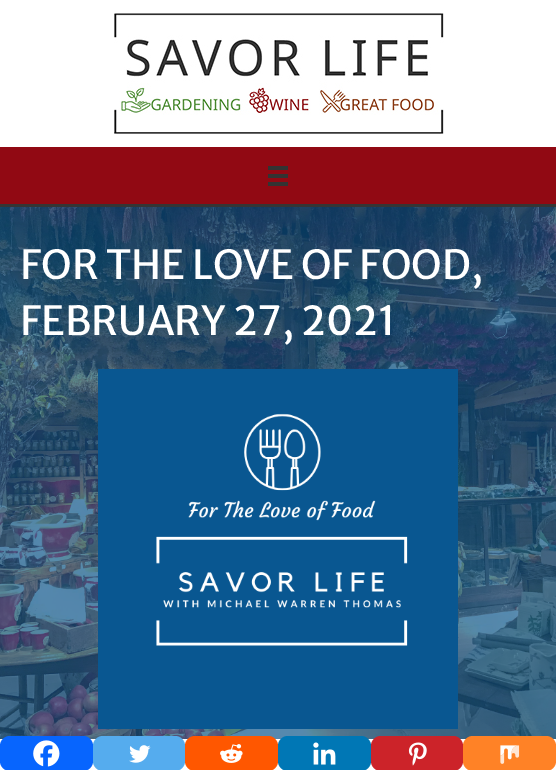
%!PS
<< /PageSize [556 770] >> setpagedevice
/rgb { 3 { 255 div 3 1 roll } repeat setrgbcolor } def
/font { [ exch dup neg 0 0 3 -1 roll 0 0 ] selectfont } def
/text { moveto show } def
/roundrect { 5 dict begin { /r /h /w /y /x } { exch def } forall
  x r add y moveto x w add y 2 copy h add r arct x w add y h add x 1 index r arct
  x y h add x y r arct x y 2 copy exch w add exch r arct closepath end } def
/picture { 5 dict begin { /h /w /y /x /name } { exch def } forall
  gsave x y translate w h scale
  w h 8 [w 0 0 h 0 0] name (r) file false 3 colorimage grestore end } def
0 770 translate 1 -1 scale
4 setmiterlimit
255 255 255 rgb
0 0 556 770 rectfill
(img_01.rgb) 114 13 330 121 picture
145 9 19 rgb
0 147 556 57 rectfill
53 53 53 rgb
0 204 556 3 rectfill
51 51 51 rgb
268 166 20 4 rectfill
268 174 20 4 rectfill
268 182 20 4 rectfill
(img_02.rgb) 0 207 556 532 picture
(img_03.rgb) 98 369 360 360 picture
7 101 254 rgb
0 736 93 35 10 roundrect fill
(img_04.rgb) 33 740 27 27 picture
85 172 238 rgb
93 736 92 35 10 roundrect fill
(img_05.rgb) 129 745 22 18 picture
255 87 0 rgb
185 736 93 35 10 roundrect fill
(img_06.rgb) 220 744 23 19 picture
0 119 181 rgb
278 736 93 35 10 roundrect fill
(img_07.rgb) 313 742 23 23 picture
204 35 41 rgb
371 736 92 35 10 roundrect fill
(img_08.rgb) 408 742 19 24 picture
255 130 38 rgb
463 736 93 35 10 roundrect fill
(img_09.rgb) 500 745 20 19 picture
/MerriweatherSans-Regular 40 font
255 255 255 rgb
(FOR THE LOVE OF FOOD,) 20 279 text
(FEBRUARY 27, 2021) 20 335 text
showpage
